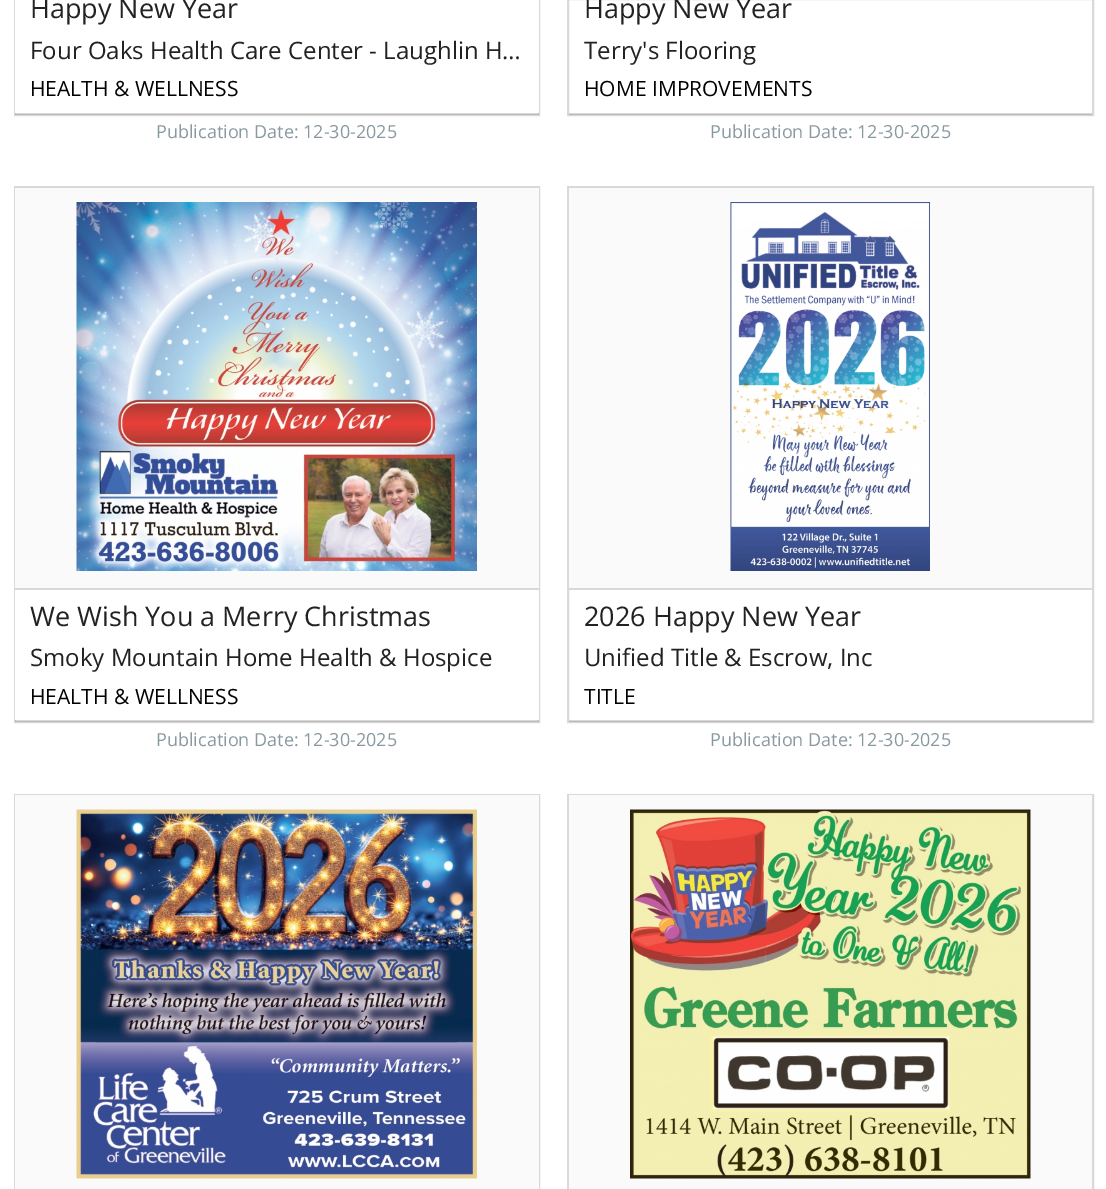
%!PS
<< /PageSize [1106 1189] /PageUsesTransparency true >> setpagedevice
/rgb { 3 { 255 div 3 1 roll } repeat setrgbcolor } def
/font { [ exch dup neg 0 0 3 -1 roll 0 0 ] selectfont } def
/text { moveto show } def
/alpha { dup .setfillconstantalpha .setstrokeconstantalpha } def
/picture { 5 dict begin { /h /w /y /x /name } { exch def } forall
  gsave x y translate w h scale
  w h 8 [w 0 0 h 0 0] name (r) file false 3 colorimage grestore end } def
0 .pushpdf14devicefilter
0 1189 translate 1 -1 scale
4 setmiterlimit
255 255 255 rgb
0 0 1106 1189 rectfill
217 217 217 rgb
2 setlinewidth
15 -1 524 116 rectstroke
0.15 alpha
0 0 0 rgb
15 113 524 2 rectfill
1 alpha
255 255 255 rgb
15 0 524 113 rectfill
217 217 217 rgb
568 -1 525 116 rectstroke
0.15 alpha
0 0 0 rgb
569 113 523 2 rectfill
1 alpha
217 217 217 rgb
15 187 524 535 rectstroke
0.15 alpha
0 0 0 rgb
15 720 524 2 rectfill
1 alpha
250 250 250 rgb
15 188 524 400 rectfill
(img_01.rgb) 76 202 401 369 picture
255 255 255 rgb
15 590 524 130 rectfill
217 217 217 rgb
15 588 524 2 rectfill
568 187 525 535 rectstroke
0.15 alpha
0 0 0 rgb
569 720 523 2 rectfill
1 alpha
250 250 250 rgb
569 188 523 400 rectfill
(img_02.rgb) 730 202 200 369 picture
217 217 217 rgb
569 588 523 2 rectfill
15 795 524 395 rectstroke
250 250 250 rgb
15 795 524 394 rectfill
(img_03.rgb) 76 809 401 370 picture
217 217 217 rgb
568 795 525 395 rectstroke
250 250 250 rgb
569 795 523 394 rectfill
(img_04.rgb) 630 809 401 370 picture
/OpenSans-Regular 27 font
34 34 34 rgb
(Happy New Year) 30 18 text
/OpenSans-Regular 24 font
(Four Oaks Health Care Center - Laughlin H…) 30 59 text
/OpenSans-Regular 21 font
0 0 0 rgb
(HEALTH & WELLNESS) 30 96 text
/OpenSans-Regular 18 font
136 153 160 rgb
(Publication Date: 12-30-2025) 156 138 text
/OpenSans-Regular 27 font
34 34 34 rgb
(Happy New Year) 584 18 text
/OpenSans-Regular 24 font
(Terry's Flooring) 584 59 text
/OpenSans-Regular 21 font
0 0 0 rgb
(HOME IMPROVEMENTS) 584 96 text
/OpenSans-Regular 18 font
136 153 160 rgb
(Publication Date: 12-30-2025) 710 138 text
/OpenSans-Regular 27 font
34 34 34 rgb
(We Wish You a Merry Christmas) 30 626 text
/OpenSans-Regular 24 font
(Smoky Mountain Home Health & Hospice) 30 666 text
/OpenSans-Regular 21 font
0 0 0 rgb
(HEALTH & WELLNESS) 30 704 text
/OpenSans-Regular 18 font
136 153 160 rgb
(Publication Date: 12-30-2025) 156 746 text
/OpenSans-Regular 27 font
34 34 34 rgb
(2026 Happy New Year) 584 626 text
/OpenSans-Regular 24 font
(Unified Title & Escrow, Inc) 584 666 text
/OpenSans-Regular 21 font
0 0 0 rgb
(TITLE) 584 704 text
/OpenSans-Regular 18 font
136 153 160 rgb
(Publication Date: 12-30-2025) 710 746 text
.poppdf14devicefilter showpage
